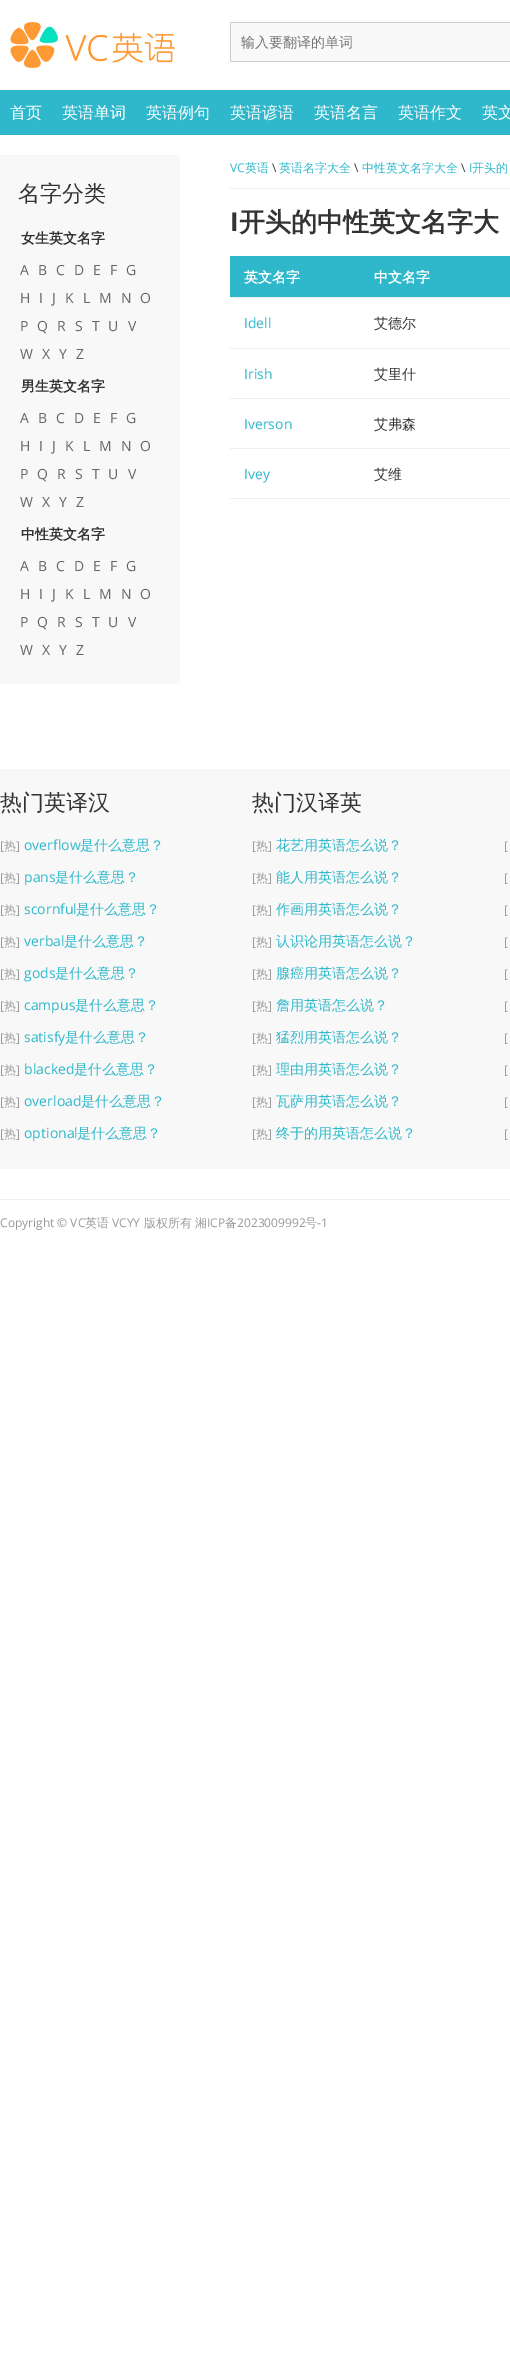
%!PS
<< /PageSize [510 2353] >> setpagedevice
/rgb { 3 { 255 div 3 1 roll } repeat setrgbcolor } def
/font { [ exch dup neg 0 0 3 -1 roll 0 0 ] selectfont } def
/text { moveto show } def
/picture { 5 dict begin { /h /w /y /x /name } { exch def } forall
  gsave x y translate w h scale
  w h 8 [w 0 0 h 0 0] name (r) file false 3 colorimage grestore end } def
0 2353 translate 1 -1 scale
4 setmiterlimit
255 255 255 rgb
0 0 510 2353 rectfill
(img_01.rgb) 10 22 165 46 picture
249 249 249 rgb
231 23 279 38 rectfill
204 204 204 rgb
230 22 280 1 rectfill
230 61 280 1 rectfill
230 22 1 40 rectfill
47 184 203 rgb
0 90 510 45 rectfill
248 248 248 rgb
0 155 180 529 rectfill
238 238 238 rgb
230 188 280 1 rectfill
47 184 203 rgb
230 256 280 41 rectfill
238 238 238 rgb
230 297 280 1 rectfill
230 348 280 1 rectfill
230 398 280 1 rectfill
230 448 280 1 rectfill
230 498 280 1 rectfill
248 248 248 rgb
0 769 510 400 rectfill
238 238 238 rgb
0 1199 510 1 rectfill
/WenQuanYiZenHei-Medium 14 font
117 117 117 rgb
(输入要翻译的单词) 241 47 text
/WenQuanYiZenHei-Medium 16 font
255 255 255 rgb
(首页) 10 118 text
(英语单词) 62 118 text
(英语例句) 146 118 text
(英语谚语) 230 118 text
(英语名言) 314 118 text
(英语作文) 398 118 text
(英文) 482 118 text
/WenQuanYiZenHei-Medium 22 font
51 51 51 rgb
(名字分类) 18 201 text
/WenQuanYiZenHei-Bold 14 font
(女生英文名字) 21 243 text
/OpenSans-Regular 14 font
102 102 102 rgb
(A) 20 275 text
(B) 38 275 text
(C) 56 275 text
(D) 74 275 text
(E) 93 275 text
(F) 110 275 text
(G) 126 275 text
(H) 20 303 text
(I) 39 303 text
(J) 52 303 text
(K) 65 303 text
(L) 83 303 text
(M) 99 303 text
(N) 121 303 text
(O) 140 303 text
(P) 20 331 text
(Q) 37 331 text
(R) 57 331 text
(S) 75 331 text
(T) 92 331 text
(U) 108 331 text
(V) 128 331 text
(W) 20 359 text
(X) 42 359 text
(Y) 59 359 text
(Z) 76 359 text
/WenQuanYiZenHei-Bold 14 font
51 51 51 rgb
(男生英文名字) 21 391 text
/OpenSans-Regular 14 font
102 102 102 rgb
(A) 20 423 text
(B) 38 423 text
(C) 56 423 text
(D) 74 423 text
(E) 93 423 text
(F) 110 423 text
(G) 126 423 text
(H) 20 451 text
(I) 39 451 text
(J) 52 451 text
(K) 65 451 text
(L) 83 451 text
(M) 99 451 text
(N) 121 451 text
(O) 140 451 text
(P) 20 479 text
(Q) 37 479 text
(R) 57 479 text
(S) 75 479 text
(T) 92 479 text
(U) 108 479 text
(V) 128 479 text
(W) 20 507 text
(X) 42 507 text
(Y) 59 507 text
(Z) 76 507 text
/WenQuanYiZenHei-Bold 14 font
51 51 51 rgb
(中性英文名字) 21 539 text
/OpenSans-Regular 14 font
102 102 102 rgb
(A) 20 571 text
(B) 38 571 text
(C) 56 571 text
(D) 74 571 text
(E) 93 571 text
(F) 110 571 text
(G) 126 571 text
(H) 20 599 text
(I) 39 599 text
(J) 52 599 text
(K) 65 599 text
(L) 83 599 text
(M) 99 599 text
(N) 121 599 text
(O) 140 599 text
(P) 20 627 text
(Q) 37 627 text
(R) 57 627 text
(S) 75 627 text
(T) 92 627 text
(U) 108 627 text
(V) 128 627 text
(W) 20 655 text
(X) 42 655 text
(Y) 59 655 text
(Z) 76 655 text
/OpenSans-Regular 12 font
47 184 203 rgb
(VC) 230 172 text
/WenQuanYiZenHei-Medium 12 font
(英语) 245 172 text
/OpenSans-Regular 12 font
51 51 51 rgb
(\\) 272 172 text
/WenQuanYiZenHei-Medium 12 font
47 184 203 rgb
(英语名字大全) 279 172 text
/OpenSans-Regular 12 font
51 51 51 rgb
(\\) 354 172 text
/WenQuanYiZenHei-Medium 12 font
47 184 203 rgb
(中性英文名字大全) 362 172 text
/OpenSans-Regular 12 font
51 51 51 rgb
(\\) 461 172 text
47 184 203 rgb
(I) 469 172 text
/WenQuanYiZenHei-Medium 12 font
(开头的) 472 172 text
/OpenSans-Bold 26 font
51 51 51 rgb
(I) 230 231 text
/WenQuanYiZenHei-Bold 26 font
(开头的中性英文名字大) 239 231 text
/WenQuanYiZenHei-Bold 14 font
255 255 255 rgb
(英文名字) 244 282 text
(中文名字) 374 282 text
/OpenSans-Regular 14 font
47 184 203 rgb
(Idell) 244 328 text
/WenQuanYiZenHei-Medium 14 font
51 51 51 rgb
(艾德尔) 374 328 text
/OpenSans-Regular 14 font
47 184 203 rgb
(Irish) 244 379 text
/WenQuanYiZenHei-Medium 14 font
51 51 51 rgb
(艾里什) 374 379 text
/OpenSans-Regular 14 font
47 184 203 rgb
(Iverson) 244 429 text
/WenQuanYiZenHei-Medium 14 font
51 51 51 rgb
(艾弗森) 374 429 text
/OpenSans-Regular 14 font
47 184 203 rgb
(Ivey) 244 479 text
/WenQuanYiZenHei-Medium 14 font
51 51 51 rgb
(艾维) 374 479 text
/WenQuanYiZenHei-Medium 22 font
(热门英译汉) 0 810 text
/OpenSans-Regular 12 font
153 153 153 rgb
([) 0 850 text
/WenQuanYiZenHei-Medium 12 font
(热) 4 850 text
/OpenSans-Regular 12 font
(]) 16 850 text
/OpenSans-Regular 14 font
47 184 203 rgb
(overflow) 24 850 text
/WenQuanYiZenHei-Medium 14 font
(是什么意思？) 80 850 text
/OpenSans-Regular 12 font
153 153 153 rgb
([) 0 882 text
/WenQuanYiZenHei-Medium 12 font
(热) 4 882 text
/OpenSans-Regular 12 font
(]) 16 882 text
/OpenSans-Regular 14 font
47 184 203 rgb
(pans) 24 882 text
/WenQuanYiZenHei-Medium 14 font
(是什么意思？) 55 882 text
/OpenSans-Regular 12 font
153 153 153 rgb
([) 0 914 text
/WenQuanYiZenHei-Medium 12 font
(热) 4 914 text
/OpenSans-Regular 12 font
(]) 16 914 text
/OpenSans-Regular 14 font
47 184 203 rgb
(scornful) 24 914 text
/WenQuanYiZenHei-Medium 14 font
(是什么意思？) 76 914 text
/OpenSans-Regular 12 font
153 153 153 rgb
([) 0 946 text
/WenQuanYiZenHei-Medium 12 font
(热) 4 946 text
/OpenSans-Regular 12 font
(]) 16 946 text
/OpenSans-Regular 14 font
47 184 203 rgb
(verbal) 24 946 text
/WenQuanYiZenHei-Medium 14 font
(是什么意思？) 64 946 text
/OpenSans-Regular 12 font
153 153 153 rgb
([) 0 978 text
/WenQuanYiZenHei-Medium 12 font
(热) 4 978 text
/OpenSans-Regular 12 font
(]) 16 978 text
/OpenSans-Regular 14 font
47 184 203 rgb
(gods) 24 978 text
/WenQuanYiZenHei-Medium 14 font
(是什么意思？) 55 978 text
/OpenSans-Regular 12 font
153 153 153 rgb
([) 0 1010 text
/WenQuanYiZenHei-Medium 12 font
(热) 4 1010 text
/OpenSans-Regular 12 font
(]) 16 1010 text
/OpenSans-Regular 14 font
47 184 203 rgb
(campus) 24 1010 text
/WenQuanYiZenHei-Medium 14 font
(是什么意思？) 75 1010 text
/OpenSans-Regular 12 font
153 153 153 rgb
([) 0 1042 text
/WenQuanYiZenHei-Medium 12 font
(热) 4 1042 text
/OpenSans-Regular 12 font
(]) 16 1042 text
/OpenSans-Regular 14 font
47 184 203 rgb
(satisfy) 24 1042 text
/WenQuanYiZenHei-Medium 14 font
(是什么意思？) 65 1042 text
/OpenSans-Regular 12 font
153 153 153 rgb
([) 0 1074 text
/WenQuanYiZenHei-Medium 12 font
(热) 4 1074 text
/OpenSans-Regular 12 font
(]) 16 1074 text
/OpenSans-Regular 14 font
47 184 203 rgb
(blacked) 24 1074 text
/WenQuanYiZenHei-Medium 14 font
(是什么意思？) 74 1074 text
/OpenSans-Regular 12 font
153 153 153 rgb
([) 0 1106 text
/WenQuanYiZenHei-Medium 12 font
(热) 4 1106 text
/OpenSans-Regular 12 font
(]) 16 1106 text
/OpenSans-Regular 14 font
47 184 203 rgb
(overload) 24 1106 text
/WenQuanYiZenHei-Medium 14 font
(是什么意思？) 81 1106 text
/OpenSans-Regular 12 font
153 153 153 rgb
([) 0 1138 text
/WenQuanYiZenHei-Medium 12 font
(热) 4 1138 text
/OpenSans-Regular 12 font
(]) 16 1138 text
/OpenSans-Regular 14 font
47 184 203 rgb
(optional) 24 1138 text
/WenQuanYiZenHei-Medium 14 font
(是什么意思？) 77 1138 text
/WenQuanYiZenHei-Medium 22 font
51 51 51 rgb
(热门汉译英) 252 810 text
/OpenSans-Regular 12 font
153 153 153 rgb
([) 252 850 text
/WenQuanYiZenHei-Medium 12 font
(热) 256 850 text
/OpenSans-Regular 12 font
(]) 268 850 text
/WenQuanYiZenHei-Medium 14 font
47 184 203 rgb
(花艺用英语怎么说？) 276 850 text
/OpenSans-Regular 12 font
153 153 153 rgb
([) 252 882 text
/WenQuanYiZenHei-Medium 12 font
(热) 256 882 text
/OpenSans-Regular 12 font
(]) 268 882 text
/WenQuanYiZenHei-Medium 14 font
47 184 203 rgb
(能人用英语怎么说？) 276 882 text
/OpenSans-Regular 12 font
153 153 153 rgb
([) 252 914 text
/WenQuanYiZenHei-Medium 12 font
(热) 256 914 text
/OpenSans-Regular 12 font
(]) 268 914 text
/WenQuanYiZenHei-Medium 14 font
47 184 203 rgb
(作画用英语怎么说？) 276 914 text
/OpenSans-Regular 12 font
153 153 153 rgb
([) 252 946 text
/WenQuanYiZenHei-Medium 12 font
(热) 256 946 text
/OpenSans-Regular 12 font
(]) 268 946 text
/WenQuanYiZenHei-Medium 14 font
47 184 203 rgb
(认识论用英语怎么说？) 276 946 text
/OpenSans-Regular 12 font
153 153 153 rgb
([) 252 978 text
/WenQuanYiZenHei-Medium 12 font
(热) 256 978 text
/OpenSans-Regular 12 font
(]) 268 978 text
/WenQuanYiZenHei-Medium 14 font
47 184 203 rgb
(腺癌用英语怎么说？) 276 978 text
/OpenSans-Regular 12 font
153 153 153 rgb
([) 252 1010 text
/WenQuanYiZenHei-Medium 12 font
(热) 256 1010 text
/OpenSans-Regular 12 font
(]) 268 1010 text
/WenQuanYiZenHei-Medium 14 font
47 184 203 rgb
(詹用英语怎么说？) 276 1010 text
/OpenSans-Regular 12 font
153 153 153 rgb
([) 252 1042 text
/WenQuanYiZenHei-Medium 12 font
(热) 256 1042 text
/OpenSans-Regular 12 font
(]) 268 1042 text
/WenQuanYiZenHei-Medium 14 font
47 184 203 rgb
(猛烈用英语怎么说？) 276 1042 text
/OpenSans-Regular 12 font
153 153 153 rgb
([) 252 1074 text
/WenQuanYiZenHei-Medium 12 font
(热) 256 1074 text
/OpenSans-Regular 12 font
(]) 268 1074 text
/WenQuanYiZenHei-Medium 14 font
47 184 203 rgb
(理由用英语怎么说？) 276 1074 text
/OpenSans-Regular 12 font
153 153 153 rgb
([) 252 1106 text
/WenQuanYiZenHei-Medium 12 font
(热) 256 1106 text
/OpenSans-Regular 12 font
(]) 268 1106 text
/WenQuanYiZenHei-Medium 14 font
47 184 203 rgb
(瓦萨用英语怎么说？) 276 1106 text
/OpenSans-Regular 12 font
153 153 153 rgb
([) 252 1138 text
/WenQuanYiZenHei-Medium 12 font
(热) 256 1138 text
/OpenSans-Regular 12 font
(]) 268 1138 text
/WenQuanYiZenHei-Medium 14 font
47 184 203 rgb
(终于的用英语怎么说？) 276 1138 text
/OpenSans-Regular 12 font
153 153 153 rgb
([) 504 850 text
([) 504 882 text
([) 504 914 text
([) 504 946 text
([) 504 978 text
([) 504 1010 text
([) 504 1042 text
([) 504 1074 text
([) 504 1106 text
([) 504 1138 text
(Copyright © VC) 0 1227 text
/WenQuanYiZenHei-Medium 12 font
(英语) 85 1227 text
/OpenSans-Regular 12 font
(VCYY) 112 1227 text
/WenQuanYiZenHei-Medium 12 font
(版权所有) 144 1227 text
(湘) 195 1227 text
/OpenSans-Regular 12 font
(ICP) 207 1227 text
/WenQuanYiZenHei-Medium 12 font
(备) 225 1227 text
/OpenSans-Regular 12 font
(2023009992) 237 1227 text
/WenQuanYiZenHei-Medium 12 font
(号) 305 1227 text
/OpenSans-Regular 12 font
(-1) 317 1227 text
showpage
